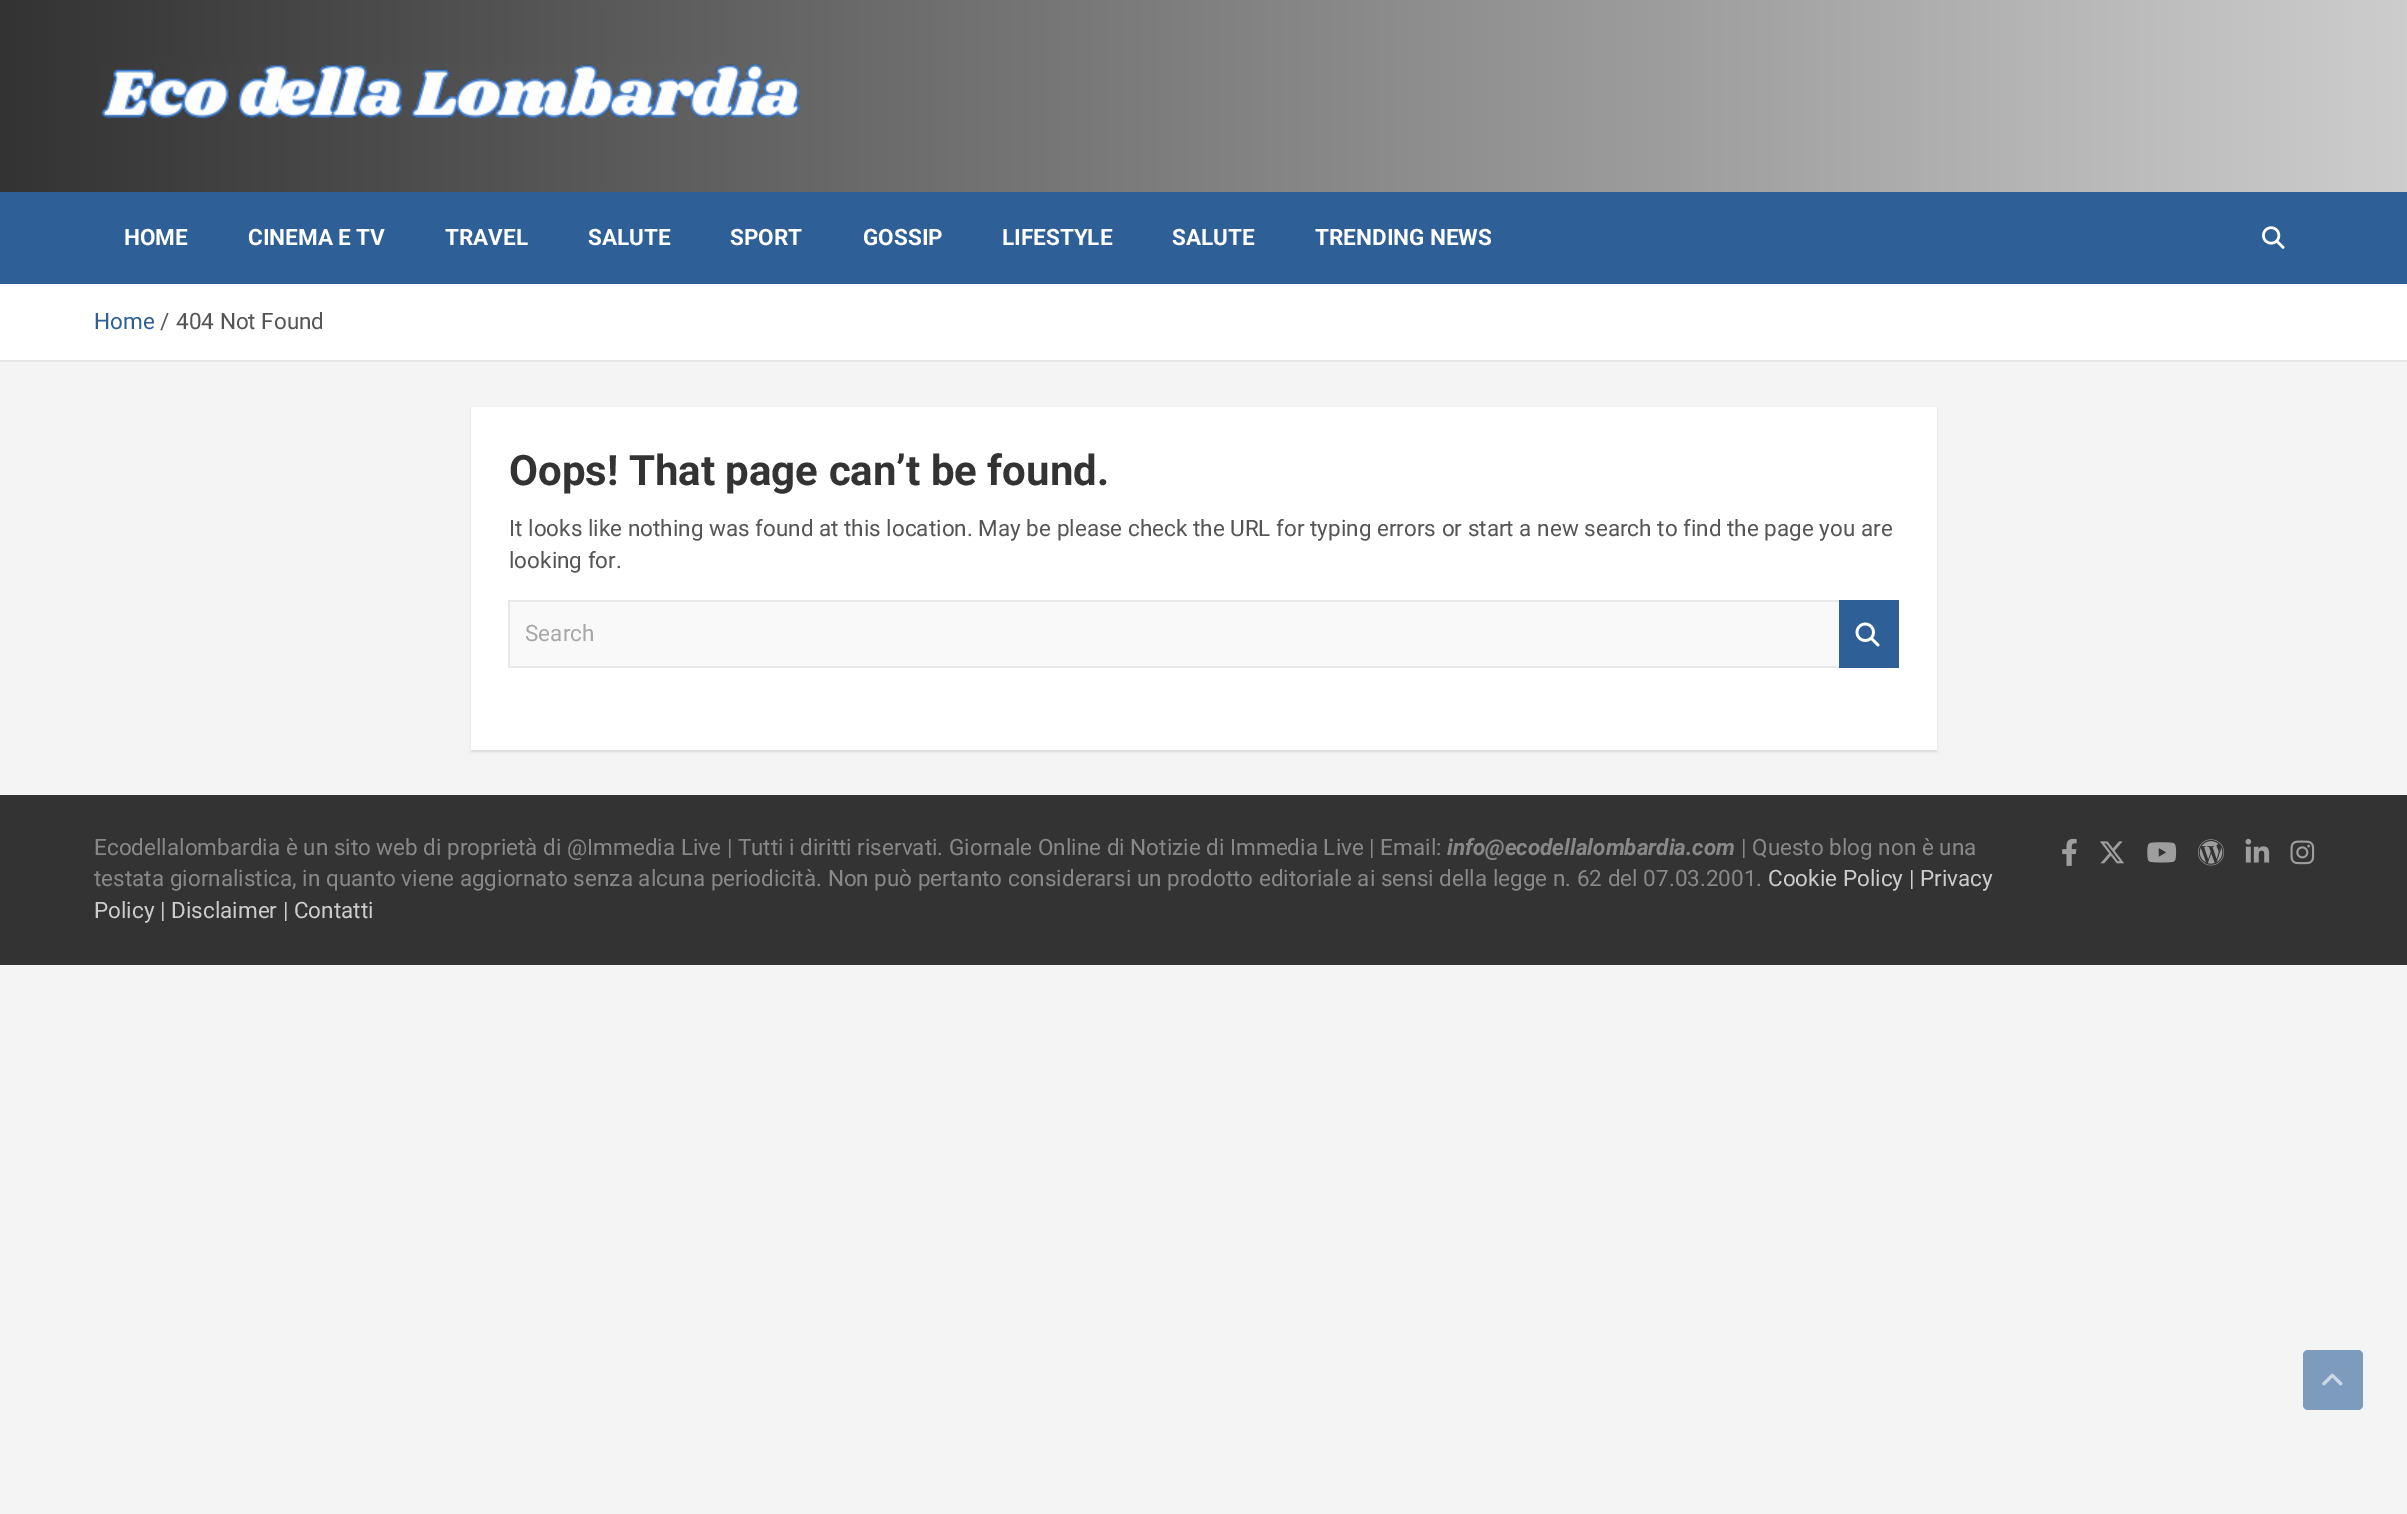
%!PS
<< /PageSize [2407 1514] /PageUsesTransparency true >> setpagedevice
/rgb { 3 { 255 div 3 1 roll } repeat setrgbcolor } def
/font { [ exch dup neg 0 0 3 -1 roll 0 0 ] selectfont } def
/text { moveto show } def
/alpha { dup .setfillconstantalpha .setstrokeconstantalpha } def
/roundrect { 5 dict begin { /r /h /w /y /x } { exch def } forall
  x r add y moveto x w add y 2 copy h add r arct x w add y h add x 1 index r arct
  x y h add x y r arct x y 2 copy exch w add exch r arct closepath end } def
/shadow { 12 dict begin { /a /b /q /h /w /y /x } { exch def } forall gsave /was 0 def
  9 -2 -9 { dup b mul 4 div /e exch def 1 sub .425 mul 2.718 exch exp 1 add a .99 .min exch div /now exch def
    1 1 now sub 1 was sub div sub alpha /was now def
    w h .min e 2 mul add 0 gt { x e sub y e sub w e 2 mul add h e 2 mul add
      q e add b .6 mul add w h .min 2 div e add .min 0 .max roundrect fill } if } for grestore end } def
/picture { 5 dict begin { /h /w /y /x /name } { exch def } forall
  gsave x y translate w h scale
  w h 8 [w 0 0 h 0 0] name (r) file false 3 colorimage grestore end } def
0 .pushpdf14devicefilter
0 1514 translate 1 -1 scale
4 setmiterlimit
244 244 244 rgb
0 0 2407 1514 rectfill
gsave 0 0 moveto 2407 0 rlineto 0 192 rlineto -2407 0 rlineto closepath clip newpath
<< /ShadingType 2 /ColorSpace /DeviceRGB /Coords [0 96 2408 96] /Extend [true true] /Function << /FunctionType 2 /Domain [0 1] /C0 [0.2 0.2 0.2] /C1 [0.804 0.804 0.804] /N 1 >> >> shfill grestore
(img_01.rgb) 101 63 699 56 picture
46 95 151 rgb
0 192 2407 92 rectfill
(img_02.rgb) 2262 226 23 23 picture
255 255 255 rgb
0 284 2407 76 rectfill
230 230 230 rgb
0 360 2407 2 rectfill
0 0 0 rgb
471 408 1466 344 0 1 0.1 shadow
255 255 255 rgb
471 407 1466 343 rectfill
249 249 249 rgb
510 602 1329 64 rectfill
232 232 232 rgb
508 600 moveto 1331 0 rlineto 0 2 rlineto -1329 0 rlineto closepath fill
1839 668 moveto -1331 0 rlineto 2 -2 rlineto 1329 0 rlineto closepath fill
0.09 alpha
0 0 0 rgb
508 668 moveto 0 -68 rlineto 2 2 rlineto 0 64 rlineto closepath fill
1 alpha
46 95 151 rgb
1839 600 60 68 rectfill
(img_03.rgb) 1855 622 25 25 picture
51 51 51 rgb
0 795 2407 170 rectfill
(img_04.rgb) 2062 838 15 28 picture
(img_05.rgb) 2100 841 24 23 picture
(img_06.rgb) 2147 842 30 21 picture
(img_07.rgb) 2197 839 28 27 picture
(img_08.rgb) 2245 838 25 25 picture
(img_09.rgb) 2290 840 25 25 picture
125 155 188 rgb
2303 1350 60 60 5 roundrect fill
(img_10.rgb) 2322 1373 21 13 picture
/Roboto-Bold 22.5 font
255 255 255 rgb
(HOME) 124 245 text
(CINEMA E TV) 248 245 text
(TRAVEL) 445 245 text
(SALUTE) 588 245 text
(SPORT) 730 245 text
(GOSSIP) 863 245 text
(LIFESTYLE) 1002 245 text
(SALUTE) 1172 245 text
(TRENDING NEWS) 1315 245 text
/Roboto-Regular 22.5 font
46 95 151 rgb
(Home) 94 329 text
85 85 85 rgb
(/) 160 329 text
(404 Not Found) 176 329 text
/Roboto-Bold 42 font
51 51 51 rgb
(Oops! That page can’t be found.) 509 485 text
/Roboto-Regular 22.5 font
85 85 85 rgb
(It looks like nothing was found at this location. May be please check the URL for typing errors or start a new search to find the page you are) 509 536 text
(looking for.) 509 568 text
167 167 167 rgb
(Search) 525 641 text
136 136 136 rgb
(Ecodellalombardia è un sito web di proprietà di @Immedia Live | Tutti i diritti riservati. Giornale Online di Notizie di Immedia Live | Email:) 94 855 text
/Roboto-BoldItalic 22.5 font
(info@ecodellalombardia.com) 1447 855 text
/Roboto-Regular 22.5 font
(| Questo blog non è una) 1741 855 text
(testata giornalistica, in quanto viene aggiornato senza alcuna periodicità. Non può pertanto considerarsi un prodotto editoriale ai sensi della legge n. 62 del 07.03.2001.) 94 886 text
204 204 204 rgb
(Cookie Policy | Privacy) 1768 886 text
(Policy | Disclaimer | Contatti) 94 918 text
.poppdf14devicefilter showpage
